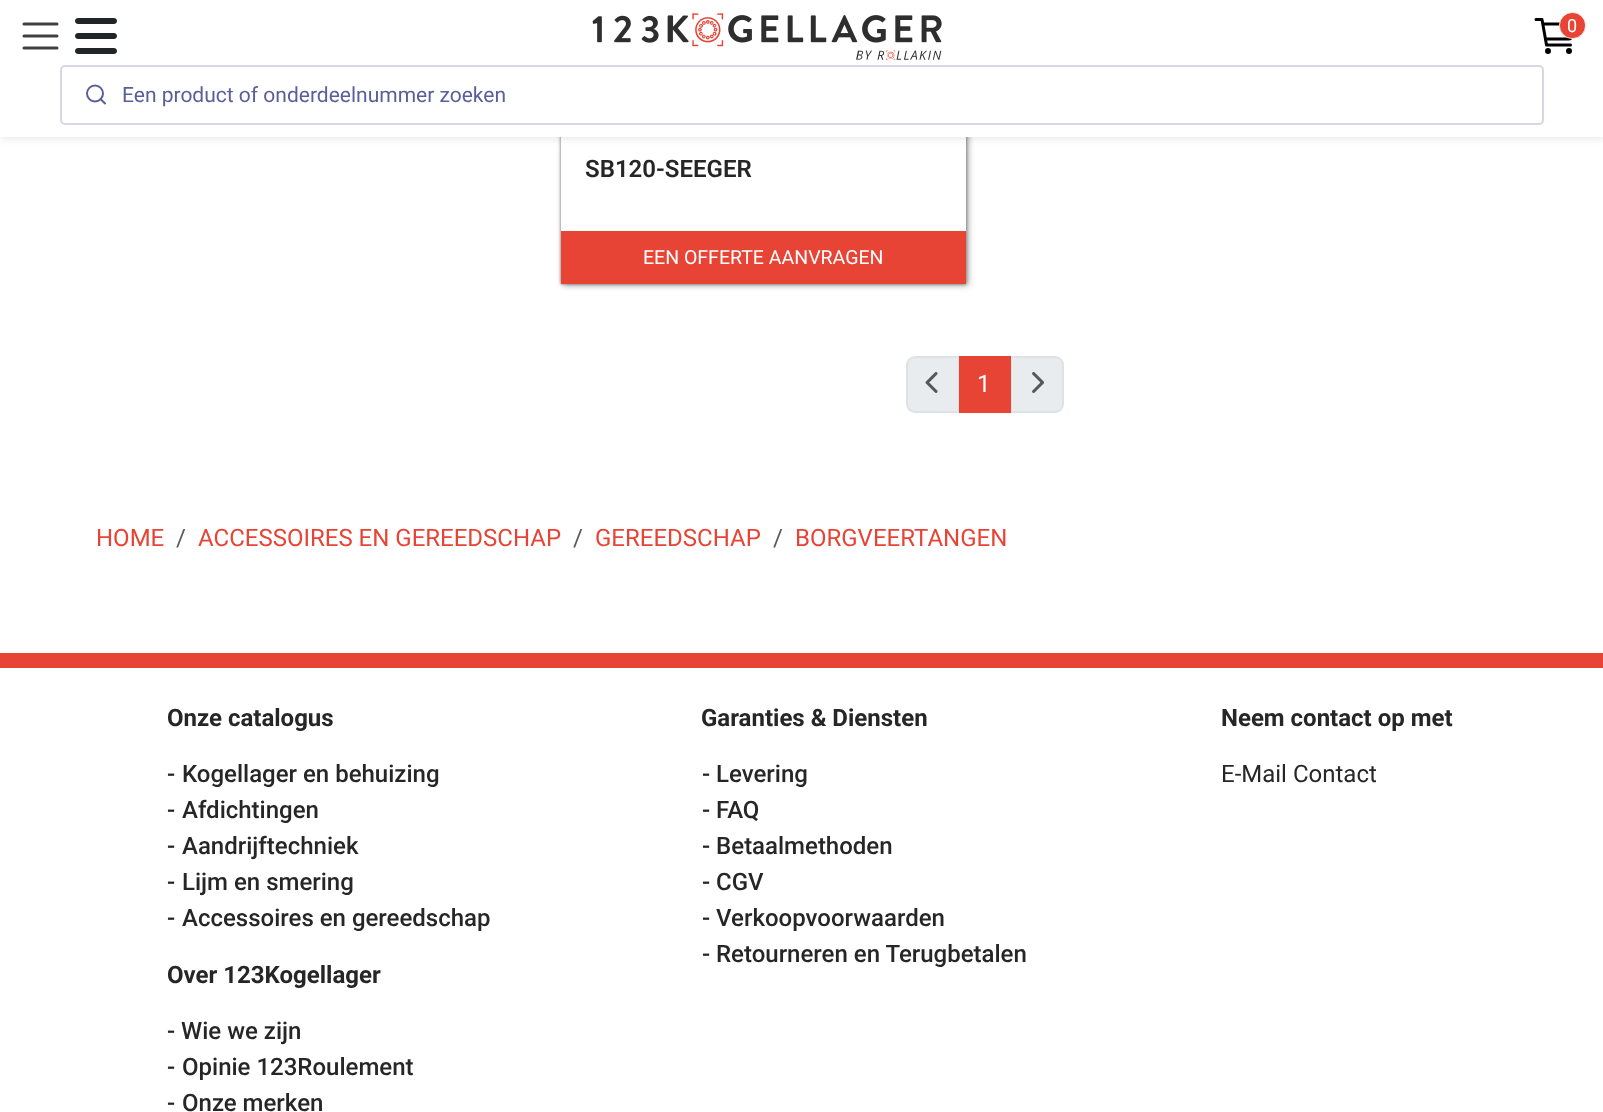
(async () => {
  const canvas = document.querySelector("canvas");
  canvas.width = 1603;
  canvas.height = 1112;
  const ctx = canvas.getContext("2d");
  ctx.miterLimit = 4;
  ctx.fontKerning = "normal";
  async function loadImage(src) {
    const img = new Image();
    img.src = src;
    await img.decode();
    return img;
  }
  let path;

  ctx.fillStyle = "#ffffff";
  ctx.fillRect(0, 0, 1603, 1112);
  ctx.fillStyle = "#999999";
  ctx.filter = "blur(3px)";
  ctx.beginPath();
  ctx.rect(563, -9, 405, 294);
  ctx.fill();
  ctx.filter = "none";
  ctx.fillStyle = "#777777";
  ctx.filter = "blur(1.5px)";
  ctx.beginPath();
  ctx.rect(561, -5, 405, 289);
  ctx.fill();
  ctx.filter = "none";
  ctx.fillStyle = "#ffffff";
  ctx.fillRect(561, 137, 405, 94);
  ctx.fillStyle = "rgba(0, 0, 0, 0.07)";
  ctx.filter = "blur(3px)";
  ctx.beginPath();
  ctx.rect(0, 3, 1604, 137);
  ctx.fill();
  ctx.filter = "none";
  ctx.fillStyle = "#ffffff";
  ctx.fillRect(0, 0, 1603, 137);
  path = new Path2D("M24 24H57M24 36H57M24 48H57");
  ctx.strokeStyle = "#404040";
  ctx.lineWidth = 3;
  ctx.lineCap = "round";
  ctx.stroke(path);
  ctx.drawImage(await loadImage("img/1.png"), 75, 18, 42, 36);
  ctx.drawImage(await loadImage("img/2.png"), 592, 13, 350, 48);
  ctx.beginPath();
  ctx.arc(1548, 51, 1.5, 0, Math.PI * 2);
  ctx.strokeStyle = "#000000";
  ctx.stroke();
  ctx.beginPath();
  ctx.arc(1569, 51, 1.5, 0, Math.PI * 2);
  ctx.stroke();
  path = new Path2D("M1536 19.5H1542L1546.5 45H1570.5M1546.5 39H1566C1570.5 39 1570.5 40 1571 36L1572 31.5C1573.5 23 1575.5 24 1567.5 24H1543.5");
  ctx.lineJoin = "round";
  ctx.stroke(path);
  ctx.fillStyle = "#e84436";
  ctx.beginPath();
  ctx.arc(1572.5, 25.5, 13.1, 0, Math.PI * 2);
  ctx.fill();
  ctx.strokeStyle = "#ffffff";
  ctx.lineWidth = 0.8;
  ctx.stroke();
  ctx.beginPath();
  ctx.roundRect(61, 66, 1482, 58, 4);
  ctx.strokeStyle = "#d6d6e7";
  ctx.lineWidth = 2;
  ctx.lineJoin = "miter";
  ctx.stroke();
  ctx.beginPath();
  ctx.arc(95, 93.5, 8, 0, Math.PI * 2);
  ctx.strokeStyle = "#5a5e9a";
  ctx.stroke();
  path = new Path2D("M105 103.5L100.5 99");
  ctx.lineJoin = "round";
  ctx.stroke(path);
  ctx.fillRect(561, 231, 405, 53);
  ctx.fillStyle = "#e9ecef";
  ctx.beginPath();
  ctx.roundRect(907, 357, 52, 55, [8, 0, 0, 8]);
  ctx.fill();
  ctx.strokeStyle = "#dee2e6";
  ctx.lineJoin = "miter";
  ctx.stroke();
  ctx.drawImage(await loadImage("img/3.png"), 925, 372, 13, 21);
  ctx.beginPath();
  ctx.roundRect(1011, 357, 52, 55, [0, 8, 8, 0]);
  ctx.fill();
  ctx.stroke();
  ctx.fillStyle = "#e84436";
  ctx.fillRect(959, 356, 52, 57);
  ctx.drawImage(await loadImage("img/4.png"), 1032, 372, 12, 21);
  ctx.fillRect(0, 653, 1603, 15);
  ctx.font = "18px Roboto";
  ctx.fillStyle = "#ffffff";
  ctx.fillText("0", 1567, 32);
  ctx.font = "21px Roboto";
  ctx.fillStyle = "#5a5e9a";
  ctx.fillText("Een product of onderdeelnummer zoeken", 122, 102);
  ctx.font = "600 24px Roboto";
  ctx.fillStyle = "#262626";
  ctx.fillText("SB120-SEEGER", 585, 177);
  ctx.font = "19.5px Roboto";
  ctx.fillStyle = "#ffffff";
  ctx.fillText("EEN OFFERTE AANVRAGEN", 643, 264);
  ctx.font = "24px Roboto";
  ctx.fillText("1", 977, 392);
  ctx.fillStyle = "#e84436";
  ctx.fillText("HOME", 96, 546);
  ctx.fillStyle = "#595c5f";
  ctx.fillText("/", 176, 546);
  ctx.fillStyle = "#e84436";
  ctx.fillText("ACCESSOIRES EN GEREEDSCHAP", 198, 546);
  ctx.fillStyle = "#595c5f";
  ctx.fillText("/", 573, 546);
  ctx.fillStyle = "#e84436";
  ctx.fillText("GEREEDSCHAP", 595, 546);
  ctx.fillStyle = "#595c5f";
  ctx.fillText("/", 773, 546);
  ctx.fillStyle = "#e84436";
  ctx.fillText("BORGVEERTANGEN", 795, 546);
  ctx.font = "bold 24px Roboto";
  ctx.fillStyle = "#262626";
  ctx.fillText("Onze catalogus", 167, 726);
  ctx.font = "500 24px Roboto";
  for (const [text, x, y] of [
    ["-", 167, 782],
    ["Kogellager en behuizing", 182, 782],
    ["-", 167, 818],
    ["Afdichtingen", 182, 818],
    ["-", 167, 854],
    ["Aandrijftechniek", 182, 854],
    ["-", 167, 890],
    ["Lijm en smering", 182, 890],
    ["-", 167, 926],
    ["Accessoires en gereedschap", 182, 926],
  ]) {
    ctx.fillText(text, x, y);
  }
  ctx.font = "bold 24px Roboto";
  ctx.fillText("Over 123Kogellager", 167, 983);
  ctx.font = "500 24px Roboto";
  for (const [text, x, y] of [
    ["- Wie we zijn", 167, 1039],
    ["-", 167, 1075],
    ["Opinie 123Roulement", 182, 1075],
    ["-", 167, 1111],
    ["Onze merken", 182, 1111],
  ]) {
    ctx.fillText(text, x, y);
  }
  ctx.font = "bold 24px Roboto";
  ctx.fillText("Garanties & Diensten", 701, 726);
  ctx.font = "500 24px Roboto";
  for (const [text, x, y] of [
    ["-", 702, 782],
    ["Levering", 716, 782],
    ["-", 702, 818],
    ["FAQ", 716, 818],
    ["- Betaalmethoden", 702, 854],
    ["-", 702, 890],
    ["CGV", 716, 890],
    ["- Verkoopvoorwaarden", 702, 926],
    ["-", 702, 962],
    ["Retourneren en Terugbetalen", 716, 962],
  ]) {
    ctx.fillText(text, x, y);
  }
  ctx.font = "bold 24px Roboto";
  ctx.fillText("Neem contact op met", 1221, 726);
  ctx.font = "24px Roboto";
  ctx.fillText("E-Mail Contact", 1221, 782);
})();
